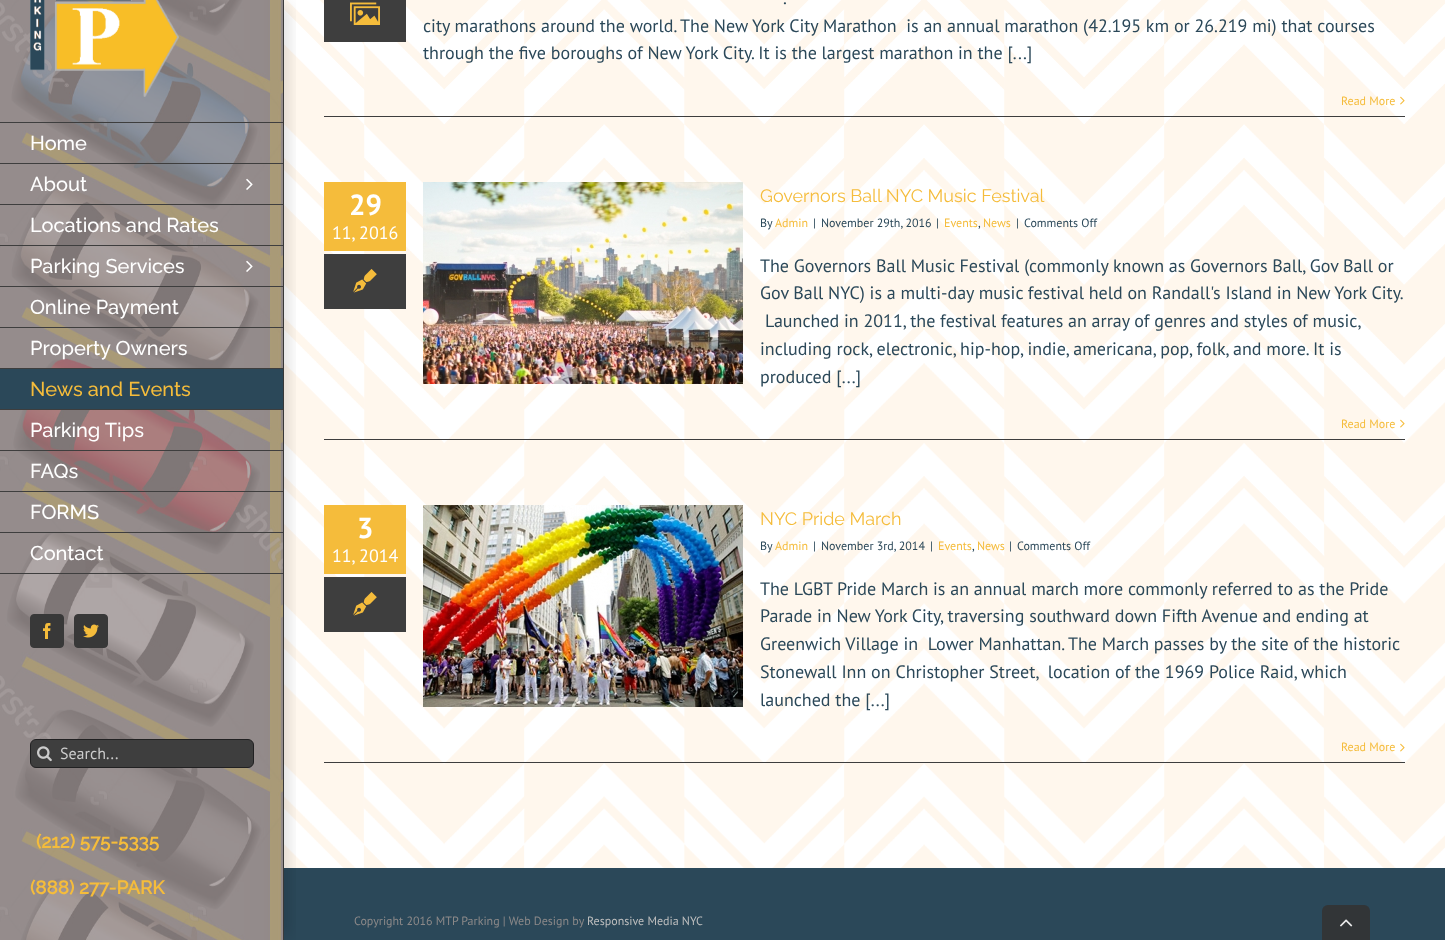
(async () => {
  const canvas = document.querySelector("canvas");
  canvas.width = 1445;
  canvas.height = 940;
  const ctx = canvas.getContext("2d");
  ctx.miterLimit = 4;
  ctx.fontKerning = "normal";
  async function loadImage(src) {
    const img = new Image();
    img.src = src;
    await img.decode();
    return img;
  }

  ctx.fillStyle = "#ffffff";
  ctx.fillRect(0, 0, 1445, 940);
  ctx.drawImage(await loadImage("img/1.png"), 0, 0, 283, 940);
  ctx.fillStyle = "#3e3e3e";
  ctx.fillRect(283, 0, 1, 940);
  ctx.drawImage(await loadImage("img/8.png"), 284, 0, 1161, 868);
  ctx.fillStyle = "#2b4859";
  ctx.fillRect(284, 868, 1161, 72);
  ctx.save();
  ctx.beginPath();
  ctx.rect(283, 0, 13, 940);
  ctx.clip();
  ctx.fillStyle = "rgba(0, 0, 0, 0.14)";
  ctx.filter = "blur(7.5px)";
  ctx.beginPath();
  ctx.rect(273, 5, 15, 930);
  ctx.fill();
  ctx.filter = "none";
  ctx.restore();
  ctx.drawImage(await loadImage("img/2.png"), 30, 0, 149, 97);
  for (const [x, y, w, h, color] of [
    [0, 122, 283, 1, "#3e3e3e"],
    [0, 163, 283, 1, "#3e3e3e"],
    [0, 204, 283, 1, "#3e3e3e"],
  ]) {
    ctx.fillStyle = color;
    ctx.fillRect(x, y, w, h);
  }
  ctx.drawImage(await loadImage("img/3.png"), 246, 178, 7, 12);
  ctx.fillRect(0, 245, 283, 1);
  ctx.fillRect(0, 286, 283, 1);
  ctx.drawImage(await loadImage("img/4.png"), 246, 260, 7, 12);
  for (const [x, y, w, h, color] of [
    [0, 327, 283, 1, "#3e3e3e"],
    [0, 368, 283, 1, "#3e3e3e"],
    [0, 369, 283, 40, "#2b4859"],
    [0, 409, 283, 1, "#3e3e3e"],
    [0, 450, 283, 1, "#3e3e3e"],
    [0, 491, 283, 1, "#3e3e3e"],
    [0, 532, 283, 1, "#3e3e3e"],
    [0, 573, 283, 1, "#3e3e3e"],
  ]) {
    ctx.fillStyle = color;
    ctx.fillRect(x, y, w, h);
  }
  ctx.fillStyle = "#383838";
  ctx.beginPath();
  ctx.roundRect(30.5, 614.5, 33, 33, 3.5);
  ctx.fill();
  ctx.strokeStyle = "#383838";
  ctx.stroke();
  ctx.drawImage(await loadImage("img/5.png"), 43, 623, 8, 16);
  ctx.beginPath();
  ctx.roundRect(74.5, 614.5, 33, 33, 3.5);
  ctx.fill();
  ctx.stroke();
  ctx.drawImage(await loadImage("img/6.png"), 83, 624, 16, 14);
  ctx.fillStyle = "#3e3e3e";
  ctx.beginPath();
  ctx.roundRect(30.5, 739.5, 223, 28, 5.5);
  ctx.fill();
  ctx.strokeStyle = "#212122";
  ctx.stroke();
  ctx.drawImage(await loadImage("img/7.png"), 37, 746, 15, 16);
  ctx.fillRect(324, 0, 82, 42);
  ctx.drawImage(await loadImage("img/9.png"), 350, 2, 30, 23);
  ctx.fillRect(324, 116, 1081, 1);
  ctx.drawImage(await loadImage("img/10.png"), 1400, 96, 5, 9);
  ctx.fillStyle = "#f5bc3b";
  ctx.fillRect(324, 182, 82, 69);
  ctx.fillStyle = "#3e3e3e";
  ctx.fillRect(324, 254, 82, 55);
  ctx.drawImage(await loadImage("img/11.png"), 353, 269, 24, 24);
  ctx.drawImage(await loadImage("img/12.png"), 423, 182, 320, 202);
  ctx.fillRect(324, 439, 1081, 1);
  ctx.drawImage(await loadImage("img/10.png"), 1400, 419, 5, 9);
  ctx.fillStyle = "#f5bc3b";
  ctx.fillRect(324, 505, 82, 69);
  ctx.fillStyle = "#3e3e3e";
  ctx.fillRect(324, 577, 82, 55);
  ctx.drawImage(await loadImage("img/11.png"), 353, 592, 24, 24);
  ctx.drawImage(await loadImage("img/13.png"), 423, 505, 320, 202);
  ctx.fillRect(324, 762, 1081, 1);
  ctx.drawImage(await loadImage("img/10.png"), 1400, 743, 5, 9);
  ctx.fillStyle = "#323537";
  ctx.beginPath();
  ctx.roundRect(1322, 905, 48, 35, [6, 6, 0, 0]);
  ctx.fill();
  ctx.drawImage(await loadImage("img/14.png"), 1340, 919, 13, 8);
  ctx.font = "500 20px Raleway";
  ctx.fillStyle = "#ffffff";
  for (const [text, x, y] of [
    ["Home", 30, 150],
    ["About", 30, 191],
    ["Locations and Rates", 30, 232],
    ["Parking Services", 30, 273],
    ["Online Payment", 30, 314],
    ["Property Owners", 30, 355],
  ]) {
    ctx.fillText(text, x, y);
  }
  ctx.fillStyle = "#f5bc3b";
  ctx.fillText("News and Events", 30, 396);
  ctx.fillStyle = "#ffffff";
  for (const [text, x, y] of [
    ["Parking Tips", 30, 437],
    ["FAQs", 30, 478],
    ["FORMS", 30, 519],
    ["Contact", 30, 560],
  ]) {
    ctx.fillText(text, x, y);
  }
  ctx.font = "16px PT Sans";
  ctx.fillStyle = "#cccccc";
  ctx.fillText("Search...", 60, 759);
  ctx.font = "bold 18.75px Raleway";
  ctx.fillStyle = "#f5bc3b";
  ctx.fillText("(212) 575-5335", 36, 848);
  ctx.fillText("(888) 277-PARK", 30, 894);
  ctx.font = "18px PT Sans";
  ctx.fillStyle = "#2b4859";
  for (const [text, x, y] of [
    [".", 783, 4],
    ["city marathons around the world. The New York City Marathon  is an annual marathon (42.195 km or 26.219 mi) that courses", 423, 32],
    ["through the five boroughs of New York City. It is the largest marathon in the [...]", 423, 59],
  ]) {
    ctx.fillText(text, x, y);
  }
  ctx.font = "12px PT Sans";
  ctx.fillStyle = "#f5bc3b";
  ctx.fillText("Read More", 1341, 105);
  ctx.font = "bold 29px PT Sans";
  ctx.fillStyle = "#ffffff";
  ctx.fillText("29", 349, 215);
  ctx.font = "18px PT Sans";
  ctx.fillText("11, 2016", 332, 239);
  ctx.font = "18px Raleway";
  ctx.fillStyle = "#f5bc3b";
  ctx.fillText("Governors Ball NYC Music Festival", 760, 202);
  ctx.font = "12px PT Sans";
  ctx.fillStyle = "#2b4859";
  ctx.fillText("By", 760, 227);
  ctx.fillStyle = "#f5bc3b";
  ctx.fillText("Admin", 775, 227);
  ctx.fillStyle = "#2b4859";
  for (const [text, x, y] of [
    ["|", 813, 227],
    ["November 29th, 2016", 821, 227],
    ["|", 936, 227],
  ]) {
    ctx.fillText(text, x, y);
  }
  ctx.fillStyle = "#f5bc3b";
  ctx.fillText("Events", 944, 227);
  ctx.fillStyle = "#2b4859";
  ctx.fillText(",", 978, 227);
  ctx.fillStyle = "#f5bc3b";
  ctx.fillText("News", 983, 227);
  ctx.fillStyle = "#2b4859";
  ctx.fillText("|", 1016, 227);
  ctx.fillText("Comments Off", 1024, 227);
  ctx.font = "18px PT Sans";
  for (const [text, x, y] of [
    ["The Governors Ball Music Festival (commonly known as Governors Ball, Gov Ball or", 760, 272],
    ["Gov Ball NYC) is a multi-day music festival held on Randall's Island in New York City.", 760, 299],
    ["Launched in 2011, the festival features an array of genres and styles of music,", 765, 327],
    ["including rock, electronic, hip-hop, indie, americana, pop, folk, and more. It is", 760, 355],
    ["produced [...]", 760, 383],
  ]) {
    ctx.fillText(text, x, y);
  }
  ctx.font = "12px PT Sans";
  ctx.fillStyle = "#f5bc3b";
  ctx.fillText("Read More", 1341, 428);
  ctx.font = "bold 29px PT Sans";
  ctx.fillStyle = "#ffffff";
  ctx.fillText("3", 357, 538);
  ctx.font = "18px PT Sans";
  ctx.fillText("11, 2014", 332, 562);
  ctx.font = "18px Raleway";
  ctx.fillStyle = "#f5bc3b";
  ctx.fillText("NYC Pride March", 760, 525);
  ctx.font = "12px PT Sans";
  ctx.fillStyle = "#2b4859";
  ctx.fillText("By", 760, 550);
  ctx.fillStyle = "#f5bc3b";
  ctx.fillText("Admin", 775, 550);
  ctx.fillStyle = "#2b4859";
  for (const [text, x, y] of [
    ["|", 813, 550],
    ["November 3rd, 2014", 821, 550],
    ["|", 930, 550],
  ]) {
    ctx.fillText(text, x, y);
  }
  ctx.fillStyle = "#f5bc3b";
  ctx.fillText("Events", 938, 550);
  ctx.fillStyle = "#2b4859";
  ctx.fillText(",", 972, 550);
  ctx.fillStyle = "#f5bc3b";
  ctx.fillText("News", 977, 550);
  ctx.fillStyle = "#2b4859";
  ctx.fillText("|", 1009, 550);
  ctx.fillText("Comments Off", 1017, 550);
  ctx.font = "18px PT Sans";
  for (const [text, x, y] of [
    ["The LGBT Pride March is an annual march more commonly referred to as the Pride", 760, 595],
    ["Parade in New York City, traversing southward down Fifth Avenue and ending at", 760, 622],
    ["Greenwich Village in  Lower Manhattan. The March passes by the site of the historic", 760, 650],
    ["Stonewall Inn on Christopher Street,  location of the 1969 Police Raid, which", 760, 678],
    ["launched the [...]", 760, 706],
  ]) {
    ctx.fillText(text, x, y);
  }
  ctx.font = "12px PT Sans";
  ctx.fillStyle = "#f5bc3b";
  ctx.fillText("Read More", 1341, 751);
  ctx.fillStyle = "#8c8989";
  ctx.fillText("Copyright 2016 MTP Parking | Web Design by", 354, 925);
  ctx.fillStyle = "#bfbfbf";
  ctx.fillText("Responsive Media NYC", 587, 925);
})();
